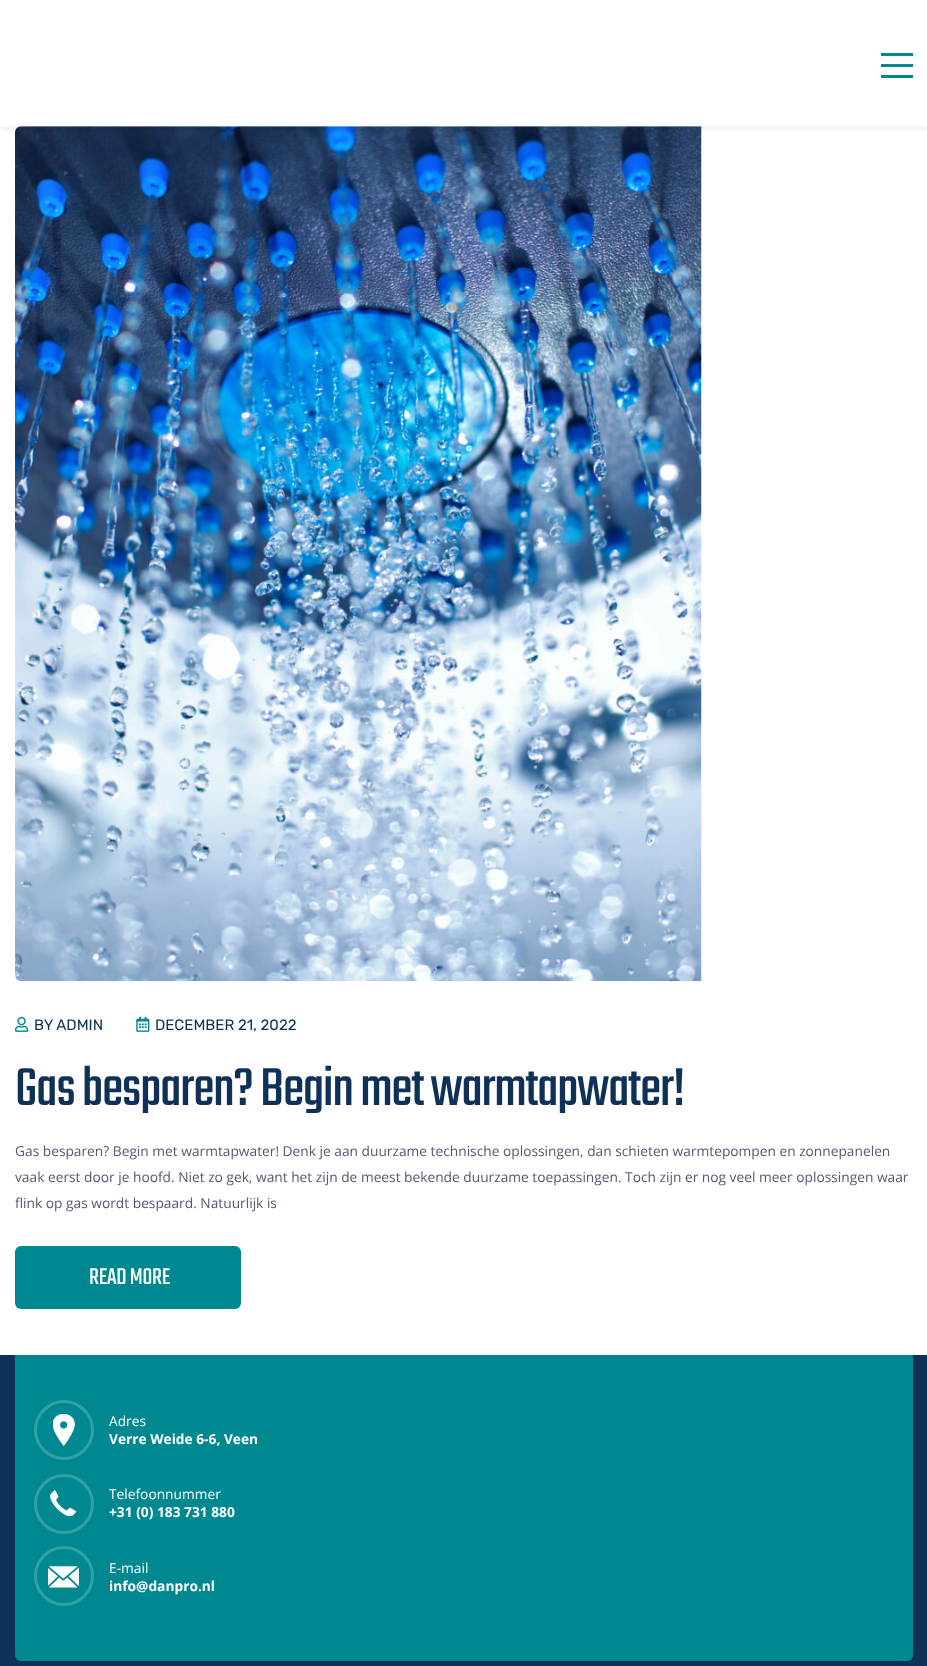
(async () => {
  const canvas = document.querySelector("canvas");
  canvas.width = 927;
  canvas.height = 1666;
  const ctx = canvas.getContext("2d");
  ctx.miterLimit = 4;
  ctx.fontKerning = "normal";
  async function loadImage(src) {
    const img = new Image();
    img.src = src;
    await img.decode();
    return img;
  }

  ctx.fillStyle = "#ffffff";
  ctx.fillRect(0, 0, 927, 1666);
  ctx.drawImage(await loadImage("img/1.png"), 15, 126, 687, 856);
  ctx.save();
  ctx.beginPath();
  ctx.rect(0, 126, 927, 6);
  ctx.clip();
  ctx.fillStyle = "rgba(0, 0, 0, 0.06)";
  ctx.filter = "blur(4px)";
  ctx.beginPath();
  ctx.rect(0, 4, 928, 126);
  ctx.fill();
  ctx.filter = "none";
  ctx.restore();
  for (const [x, y, w, h, color] of [
    [881, 53, 32, 3, "#008891"],
    [881, 64, 32, 3, "#008891"],
    [881, 75, 32, 3, "#008891"],
  ]) {
    ctx.fillStyle = color;
    ctx.fillRect(x, y, w, h);
  }
  ctx.drawImage(await loadImage("img/2.png"), 15, 1016, 14, 16);
  ctx.drawImage(await loadImage("img/3.png"), 136, 1016, 14, 16);
  ctx.beginPath();
  ctx.roundRect(15, 1246, 226, 63, 6);
  ctx.fill();
  ctx.fillStyle = "#0f3057";
  ctx.fillRect(0, 1355, 927, 311);
  ctx.fillStyle = "#008891";
  ctx.beginPath();
  ctx.roundRect(15, 1355, 898, 306, [0, 0, 6, 6]);
  ctx.fill();
  ctx.beginPath();
  ctx.arc(64, 1430, 28.5, 0, Math.PI * 2);
  ctx.strokeStyle = "#33a0a7";
  ctx.lineWidth = 3;
  ctx.stroke();
  ctx.drawImage(await loadImage("img/4.png"), 53, 1414, 22, 32);
  ctx.beginPath();
  ctx.arc(64, 1504, 28.5, 0, Math.PI * 2);
  ctx.stroke();
  ctx.drawImage(await loadImage("img/5.png"), 50, 1490, 27, 26);
  ctx.beginPath();
  ctx.arc(64, 1576, 28.5, 0, Math.PI * 2);
  ctx.stroke();
  ctx.drawImage(await loadImage("img/6.png"), 48, 1566, 31, 22);
  ctx.font = "15px Rubik";
  ctx.fillStyle = "#0f3057";
  ctx.fillText("BY ADMIN", 34, 1030);
  ctx.fillText("DECEMBER 21, 2022", 155, 1030);
  ctx.letterSpacing = "-1.1px";
  ctx.font = "58.75px Teko";
  ctx.fillText("Gas besparen? Begin met warmtapwater!", 15, 1105);
  ctx.letterSpacing = "0px";
  ctx.font = "13.75px Open Sans";
  ctx.fillStyle = "#565872";
  for (const [text, x, y] of [
    ["Gas besparen? Begin met warmtapwater! Denk je aan duurzame technische oplossingen, dan schieten warmtepompen en zonnepanelen", 15, 1156],
    ["vaak eerst door je hoofd. Niet zo gek, want het zijn de meest bekende duurzame toepassingen. Toch zijn er nog veel meer oplossingen waar", 15, 1182],
    ["flink op gas wordt bespaard. Natuurlijk is", 15, 1208],
  ]) {
    ctx.fillText(text, x, y);
  }
  ctx.letterSpacing = "-0.25px";
  ctx.font = "25px Teko";
  ctx.fillStyle = "#ffffff";
  ctx.fillText("READ MORE", 89, 1284);
  ctx.letterSpacing = "0px";
  ctx.font = "13.75px Open Sans";
  ctx.fillText("Adres", 109, 1426);
  ctx.font = "bold 13.75px Open Sans";
  ctx.fillText("Verre Weide 6-6, Veen", 109, 1444);
  ctx.font = "13.75px Open Sans";
  ctx.fillText("Telefoonnummer", 109, 1499);
  ctx.font = "bold 13.75px Open Sans";
  ctx.fillText("+31 (0) 183 731 880", 109, 1517);
  ctx.font = "13.75px Open Sans";
  ctx.fillText("E-mail", 109, 1573);
  ctx.font = "bold 13.75px Open Sans";
  ctx.fillText("info@danpro.nl", 109, 1591);
})();
